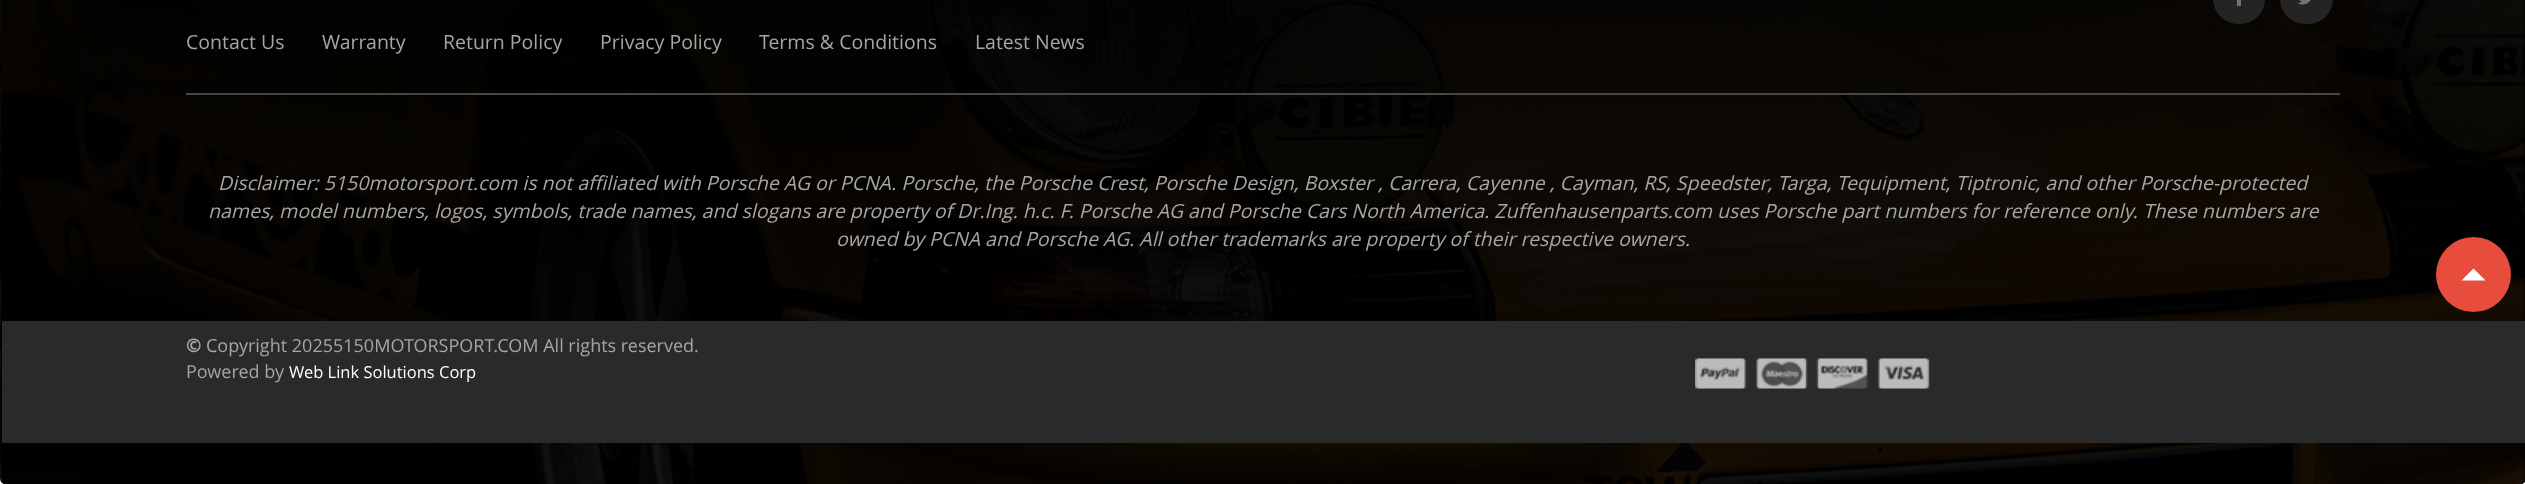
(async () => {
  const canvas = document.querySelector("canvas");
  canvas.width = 2525;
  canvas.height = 484;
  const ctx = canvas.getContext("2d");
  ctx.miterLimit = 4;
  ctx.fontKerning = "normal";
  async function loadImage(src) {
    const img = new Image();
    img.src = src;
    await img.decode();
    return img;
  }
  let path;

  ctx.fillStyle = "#ffffff";
  ctx.fillRect(0, 0, 2525, 484);
  ctx.drawImage(await loadImage("img/1.png"), 0, 0, 2525, 484);
  ctx.fillStyle = "#000000";
  ctx.fillRect(2524, 0, 1, 321);
  ctx.drawImage(await loadImage("img/2.png"), 1, 0, 2524, 443);
  ctx.fillStyle = "#454646";
  ctx.fillRect(186, 93, 2154, 2);
  ctx.fillStyle = "#242424";
  ctx.beginPath();
  ctx.roundRect(2213, -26, 52, 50, 26);
  ctx.fill();
  ctx.fillStyle = "#737373";
  ctx.fillRect(2237, 0, 4, 6);
  ctx.fillStyle = "#242424";
  ctx.beginPath();
  ctx.roundRect(2280, -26, 53, 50, 26);
  ctx.fill();
  ctx.drawImage(await loadImage("img/3.png"), 2297, 0, 14, 5);
  ctx.fillStyle = "#2a2a2a";
  ctx.fillRect(2, 321, 2523, 122);
  ctx.drawImage(await loadImage("img/4.png"), 1695, 358, 235, 31);
  ctx.fillStyle = "#e74c3c";
  ctx.beginPath();
  ctx.arc(2473.5, 274.5, 37.5, 0, Math.PI * 2);
  ctx.fill();
  ctx.fillStyle = "#ffffff";
  path = new Path2D("M2485.5 280.5H2461.5L2473.5 268.5Z");
  ctx.fill(path);
  ctx.font = "19.5px Open Sans";
  ctx.fillStyle = "#a6a6a6";
  for (const [text, x, y] of [
    ["Contact Us", 186, 49],
    ["Warranty", 322, 49],
    ["Return Policy", 443, 49],
    ["Privacy Policy", 600, 49],
    ["Terms & Conditions", 759, 49],
    ["Latest News", 975, 49],
  ]) {
    ctx.fillText(text, x, y);
  }
  ctx.font = "italic 19.5px Open Sans";
  for (const [text, x, y] of [
    ["Disclaimer: 5150motorsport.com is not affiliated with Porsche AG or PCNA. Porsche, the Porsche Crest, Porsche Design, Boxster , Carrera, Cayenne , Cayman, RS, Speedster, Targa, Tequipment, Tiptronic, and other Porsche-protected", 218, 190],
    ["names, model numbers, logos, symbols, trade names, and slogans are property of Dr.Ing. h.c. F. Porsche AG and Porsche Cars North America. Zuffenhausenparts.com uses Porsche part numbers for reference only. These numbers are", 208, 218],
    ["owned by PCNA and Porsche AG. All other trademarks are property of their respective owners.", 836, 246],
  ]) {
    ctx.fillText(text, x, y);
  }
  ctx.font = "bold 18px Open Sans";
  ctx.fillText("©", 186, 352);
  ctx.font = "18px Open Sans";
  ctx.fillText("Copyright 20255150MOTORSPORT.COM All rights reserved.", 206, 352);
  ctx.fillText("Powered by", 186, 378);
  ctx.font = "16.5px Open Sans";
  ctx.fillStyle = "#ffffff";
  ctx.fillText("Web Link Solutions Corp", 289, 378);
})();
